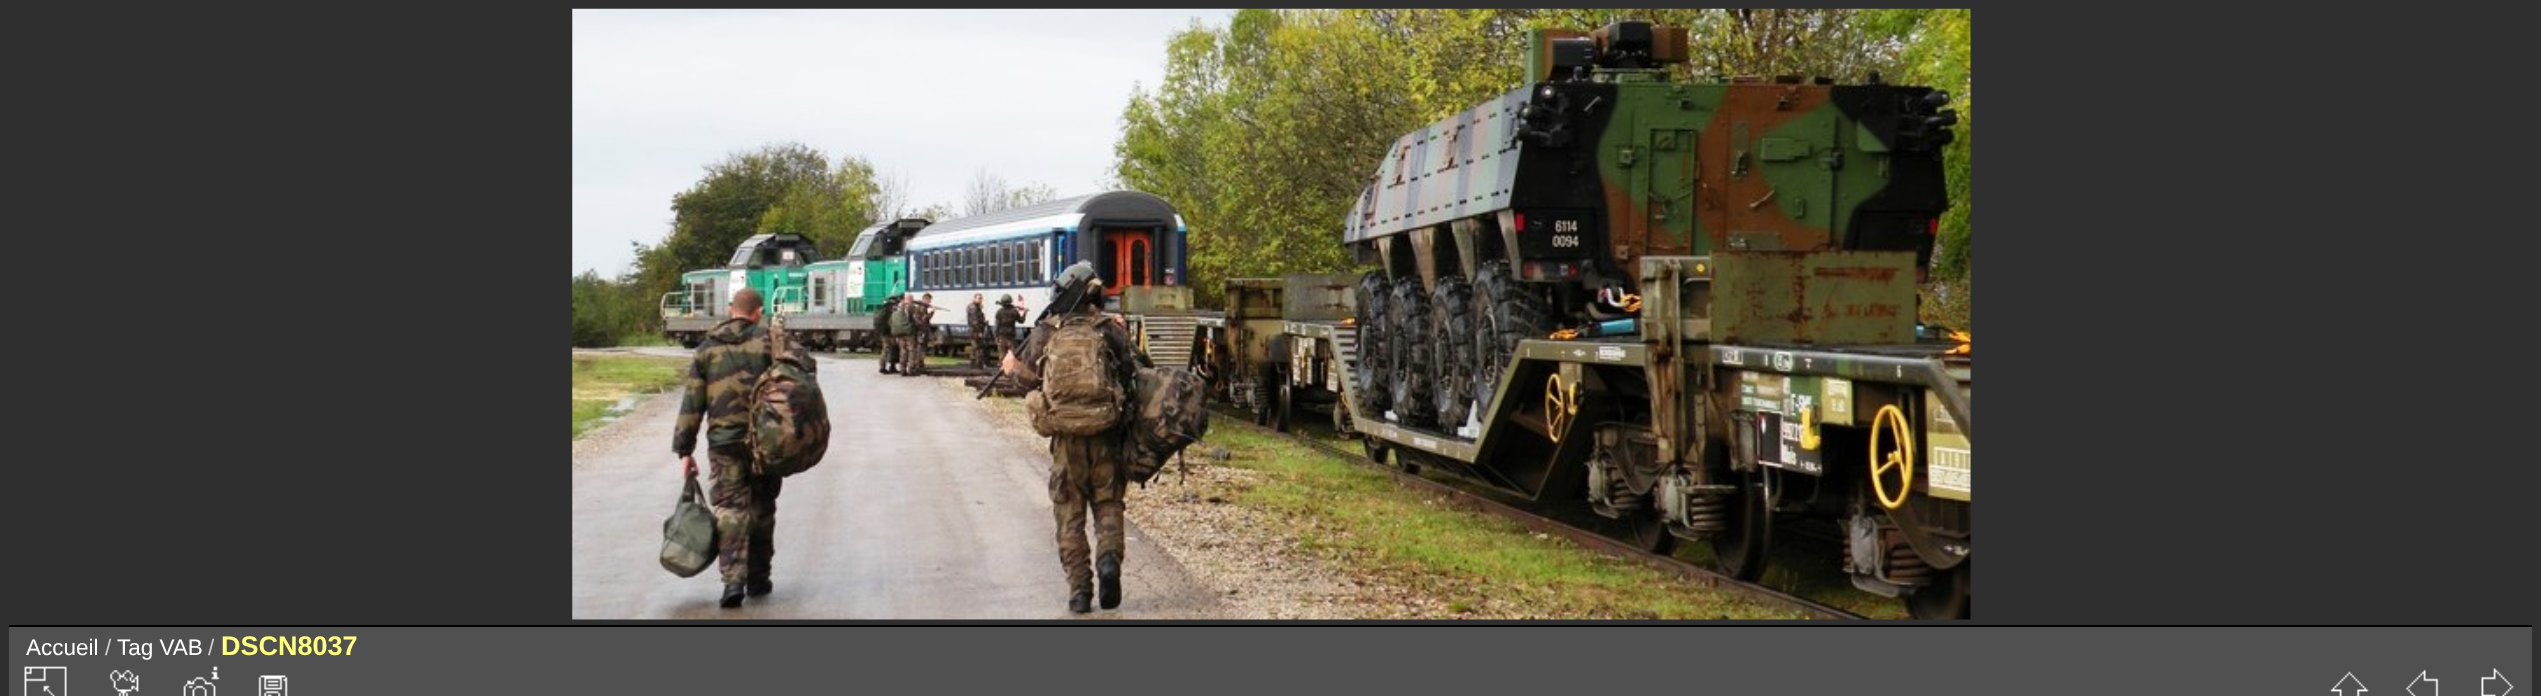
(async () => {
  const canvas = document.querySelector("canvas");
  canvas.width = 2541;
  canvas.height = 696;
  const ctx = canvas.getContext("2d");
  ctx.miterLimit = 4;
  ctx.fontKerning = "normal";
  async function loadImage(src) {
    const img = new Image();
    img.src = src;
    await img.decode();
    return img;
  }

  ctx.fillStyle = "#2f2f2f";
  ctx.fillRect(0, 0, 2541, 696);
  ctx.drawImage(await loadImage("img/1.png"), 572, 8, 1399, 612);
  ctx.fillStyle = "#505050";
  ctx.fillRect(9, 627, 2523, 69);
  ctx.drawImage(await loadImage("img/2.png"), 24, 666, 43, 30);
  ctx.drawImage(await loadImage("img/3.png"), 109, 669, 30, 27);
  ctx.drawImage(await loadImage("img/4.png"), 183, 666, 37, 30);
  ctx.drawImage(await loadImage("img/5.png"), 258, 675, 30, 21);
  ctx.drawImage(await loadImage("img/6.png"), 2330, 671, 39, 25);
  ctx.drawImage(await loadImage("img/7.png"), 2405, 669, 34, 27);
  ctx.drawImage(await loadImage("img/8.png"), 2481, 668, 33, 28);
  ctx.fillStyle = "#000000";
  ctx.fillRect(9, 625, 2523, 2);
  ctx.font = "22.5px Liberation Sans";
  ctx.fillStyle = "#ffffff";
  ctx.fillText("Accueil", 26, 655);
  ctx.fillStyle = "#d0d0d0";
  ctx.fillText("/", 105, 655);
  ctx.fillStyle = "#ffffff";
  ctx.fillText("Tag VAB", 117, 655);
  ctx.fillStyle = "#d0d0d0";
  ctx.fillText("/", 208, 655);
  ctx.font = "bold 27px Liberation Sans";
  ctx.fillStyle = "#ffff80";
  ctx.fillText("DSCN8037", 221, 655);
})();
